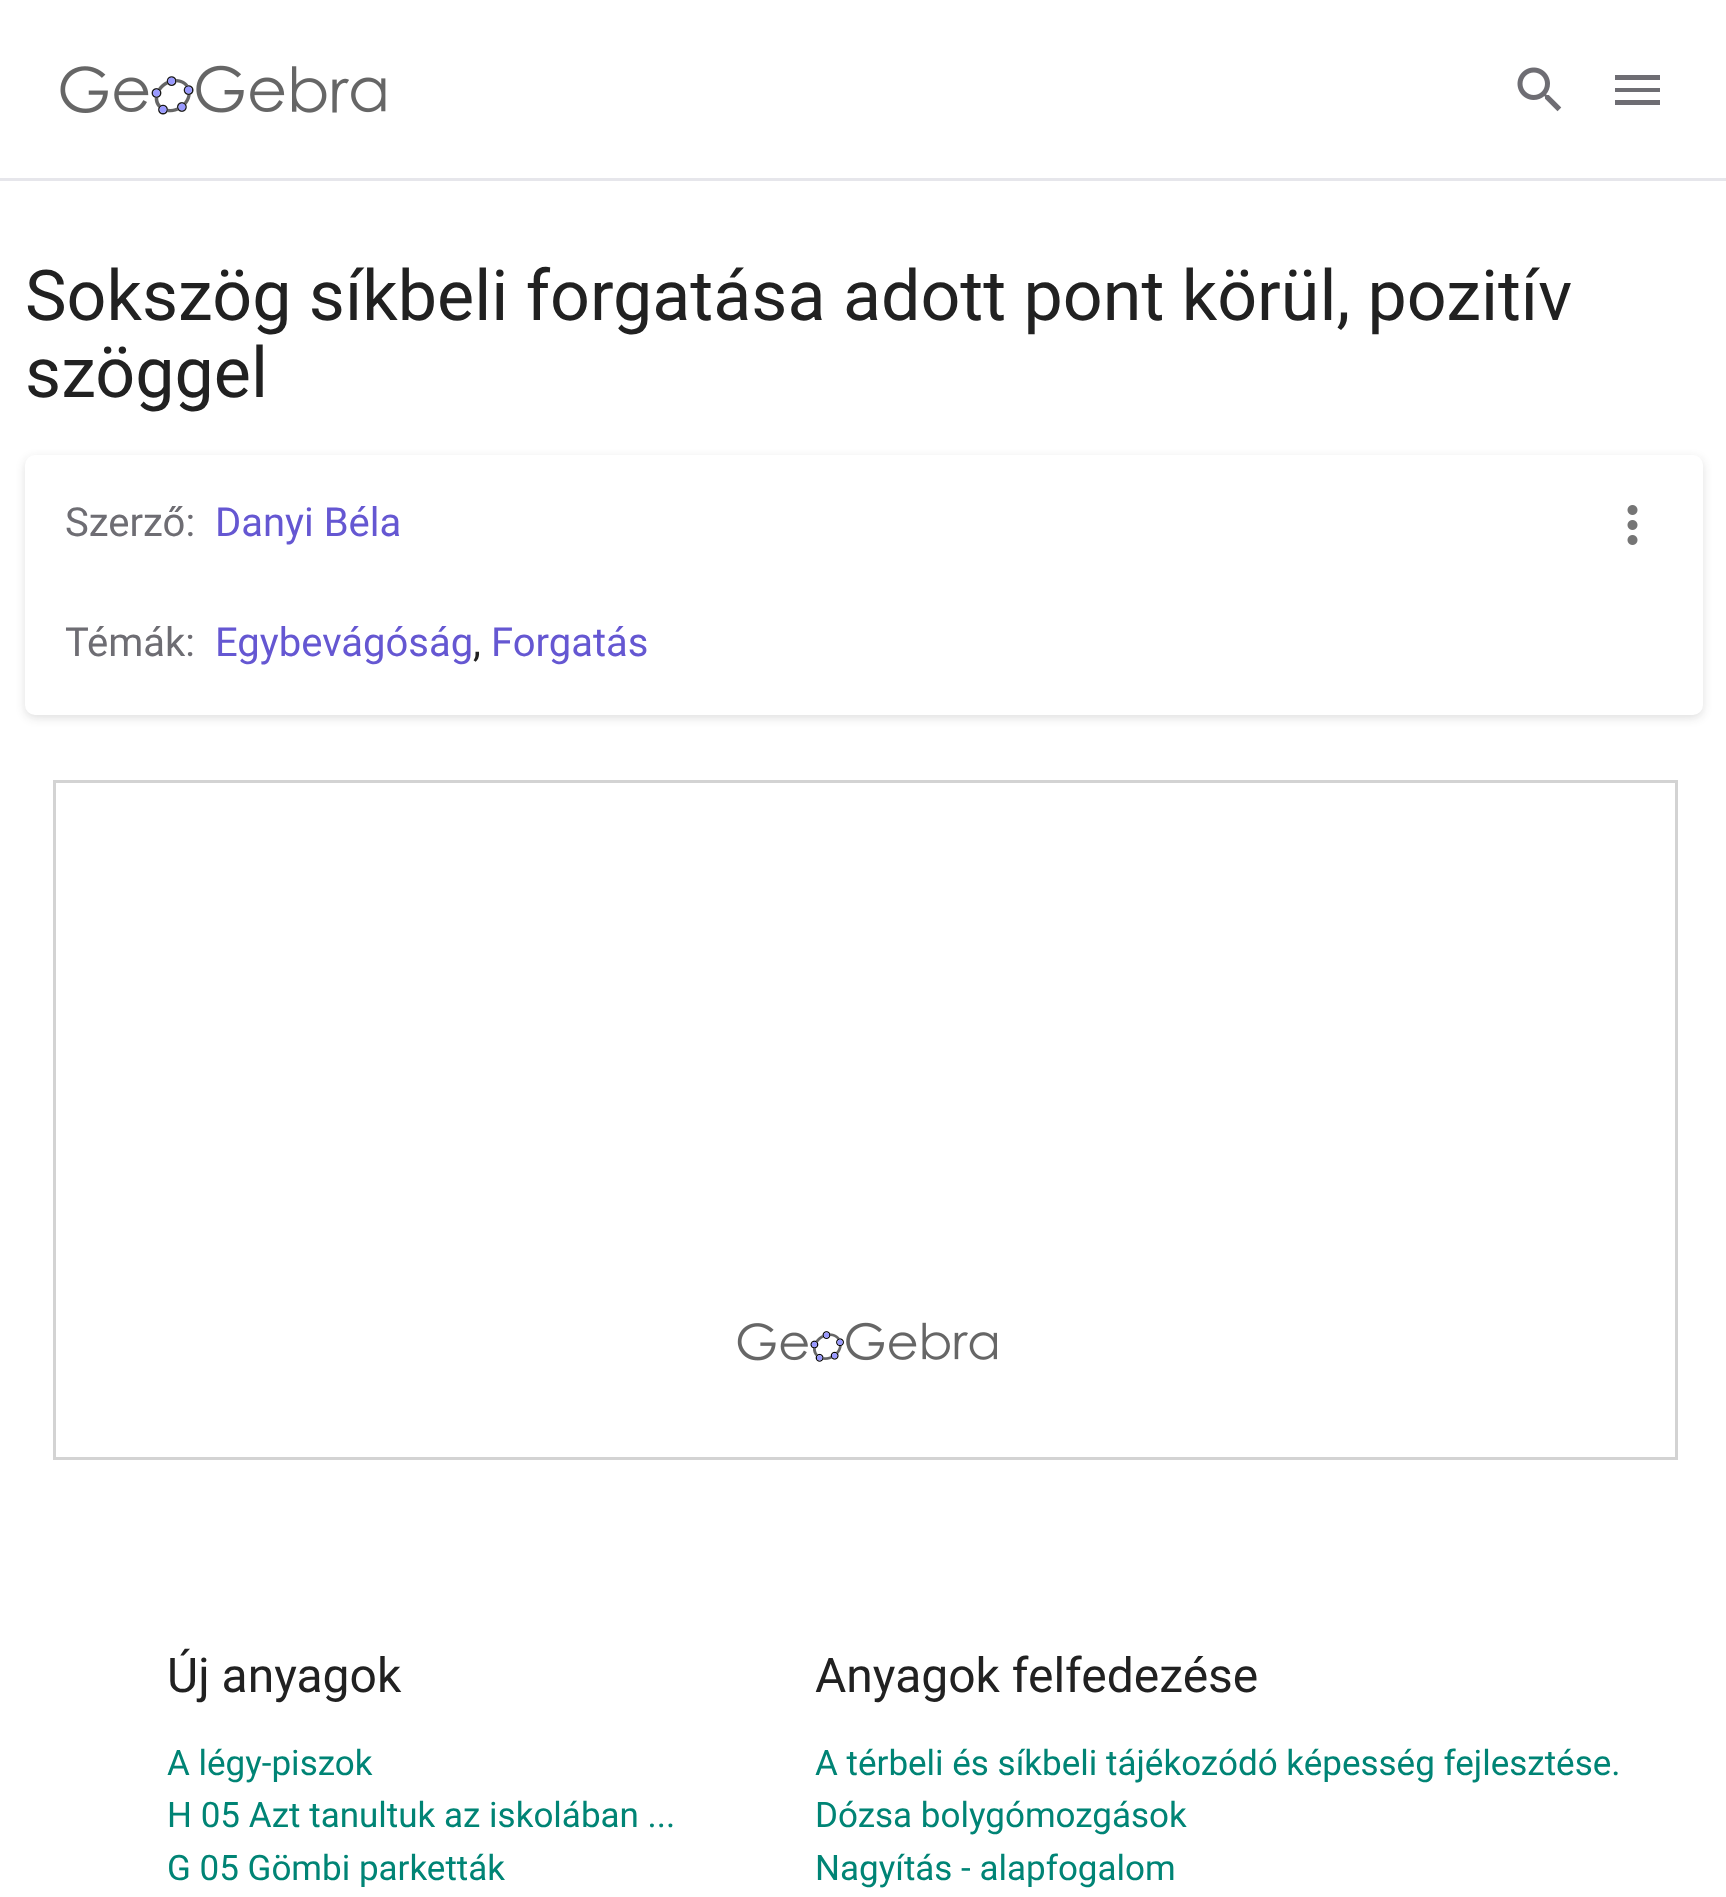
(async () => {
  const canvas = document.querySelector("canvas");
  canvas.width = 1726;
  canvas.height = 1897;
  const ctx = canvas.getContext("2d");
  ctx.miterLimit = 4;
  ctx.fontKerning = "normal";
  async function loadImage(src) {
    const img = new Image();
    img.src = src;
    await img.decode();
    return img;
  }
  let path;

  ctx.fillStyle = "#ffffff";
  ctx.fillRect(0, 0, 1726, 1897);
  ctx.fillStyle = "#e6e6eb";
  ctx.fillRect(0, 178, 1726, 3);
  ctx.drawImage(await loadImage("img/1.png"), 60, 65, 326, 50);
  ctx.drawImage(await loadImage("img/2.png"), 1517, 67, 45, 45);
  ctx.fillStyle = "#6e6d73";
  path = new Path2D("M1615 75H1660V80H1615V75M1615 88H1660V92H1615V88M1615 100H1660V105H1615Z");
  ctx.fill(path);
  ctx.fillStyle = "rgba(28, 28, 31, 0.14)";
  ctx.filter = "blur(5px)";
  ctx.beginPath();
  ctx.roundRect(25, 458, 1678, 260, 10);
  ctx.fill();
  ctx.filter = "none";
  ctx.fillStyle = "#ffffff";
  ctx.beginPath();
  ctx.roundRect(25, 455, 1678, 260, 10);
  ctx.fill();
  ctx.drawImage(await loadImage("img/3.png"), 1627, 505, 11, 40);
  ctx.drawImage(await loadImage("img/4.png"), 737, 1322, 260, 40);
  ctx.strokeStyle = "#d3d3d3";
  ctx.lineWidth = 3;
  ctx.strokeRect(54.5, 781.5, 1622, 677);
  ctx.font = "70px Roboto";
  ctx.fillStyle = "#212121";
  ctx.fillText("Sokszög síkbeli forgatása adott pont körül, pozitív", 25, 320);
  ctx.fillText("szöggel", 25, 397);
  ctx.font = "40px Roboto";
  ctx.fillStyle = "#6e6d73";
  ctx.fillText("Szerző:", 65, 536);
  ctx.fillStyle = "#6557d2";
  ctx.fillText("Danyi Béla", 215, 536);
  ctx.fillStyle = "#6e6d73";
  ctx.fillText("Témák:", 65, 656);
  ctx.fillStyle = "#6557d2";
  ctx.fillText("Egybevágóság", 215, 656);
  ctx.fillStyle = "#212121";
  ctx.fillText(",", 473, 656);
  ctx.fillStyle = "#6557d2";
  ctx.fillText("Forgatás", 491, 656);
  ctx.font = "48px Roboto";
  ctx.fillStyle = "#212121";
  ctx.fillText("Új anyagok", 167, 1692);
  ctx.font = "35px Roboto";
  ctx.fillStyle = "#008475";
  for (const [text, x, y] of [
    ["A légy-piszok", 167, 1775],
    ["H 05 Azt tanultuk az iskolában ...", 167, 1827],
    ["G 05 Gömbi parketták", 167, 1880],
  ]) {
    ctx.fillText(text, x, y);
  }
  ctx.font = "48px Roboto";
  ctx.fillStyle = "#212121";
  ctx.fillText("Anyagok felfedezése", 815, 1692);
  ctx.font = "35px Roboto";
  ctx.fillStyle = "#008475";
  for (const [text, x, y] of [
    ["A térbeli és síkbeli tájékozódó képesség fejlesztése.", 815, 1775],
    ["Dózsa bolygómozgások", 815, 1827],
    ["Nagyítás - alapfogalom", 815, 1880],
  ]) {
    ctx.fillText(text, x, y);
  }
})();
